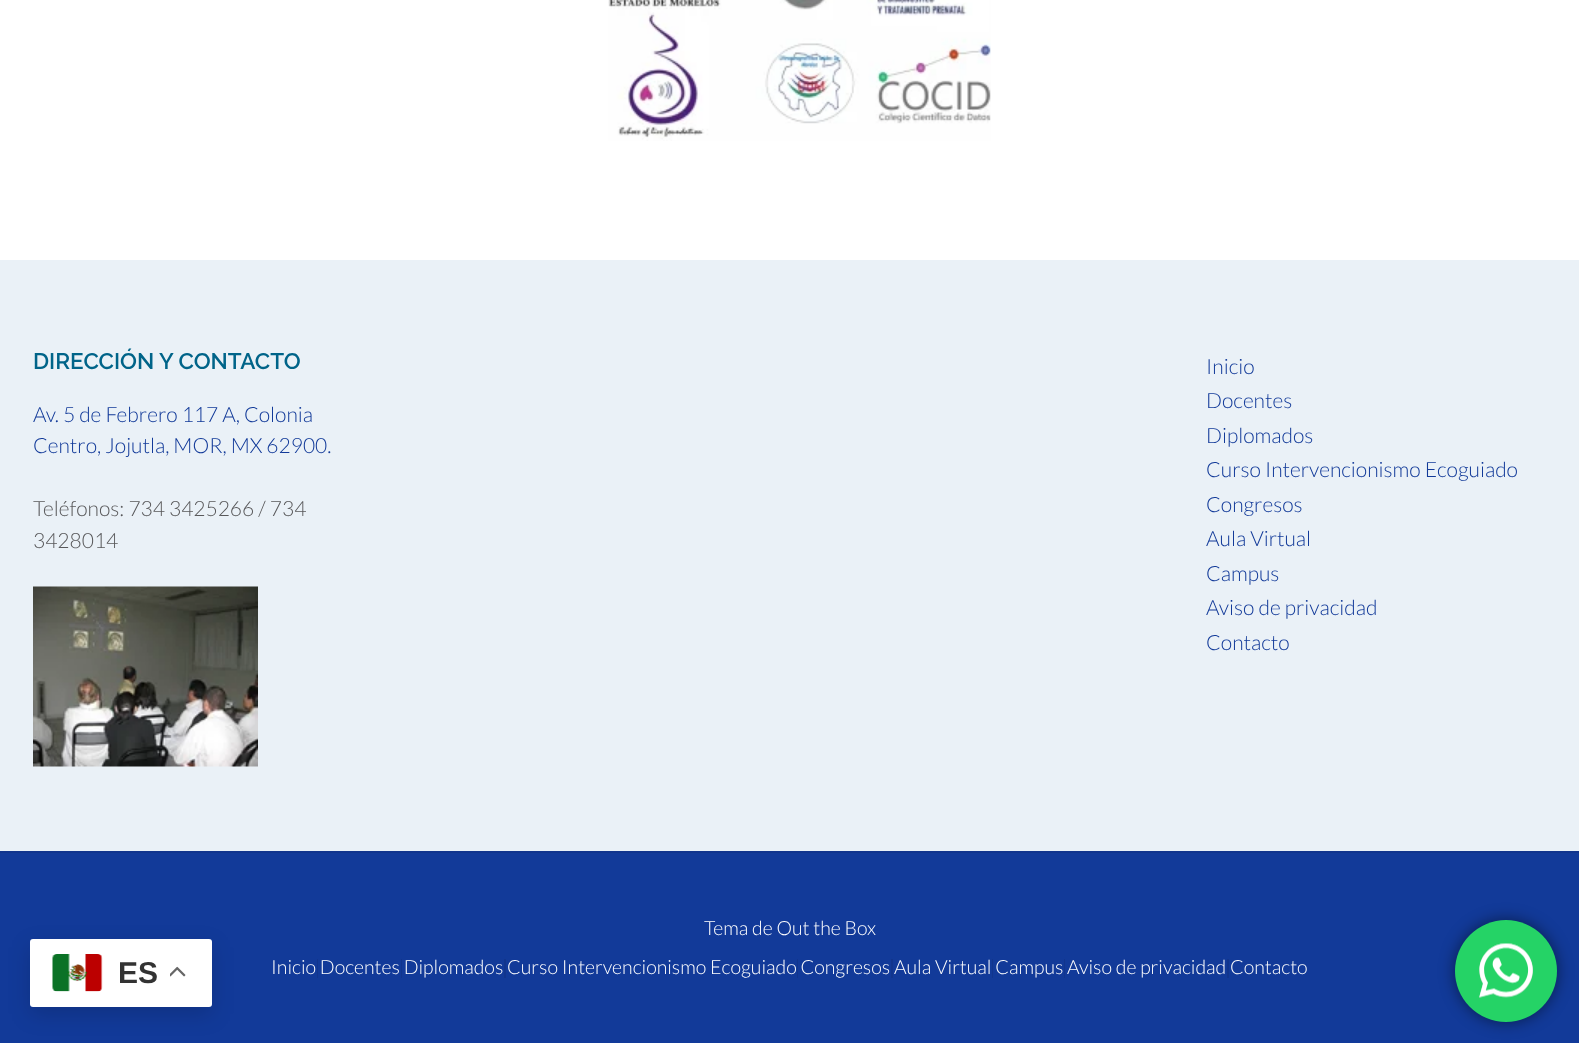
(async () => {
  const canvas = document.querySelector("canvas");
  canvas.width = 1579;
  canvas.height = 1043;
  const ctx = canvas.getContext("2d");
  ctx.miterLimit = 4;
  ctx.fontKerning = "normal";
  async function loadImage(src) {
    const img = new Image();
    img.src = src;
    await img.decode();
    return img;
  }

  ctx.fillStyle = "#ffffff";
  ctx.fillRect(0, 0, 1579, 1043);
  ctx.drawImage(await loadImage("img/1.png"), 608, 0, 383, 141);
  ctx.fillStyle = "#eaf1f7";
  ctx.fillRect(0, 260, 1579, 591);
  ctx.drawImage(await loadImage("img/2.png"), 33, 586, 225, 181);
  for (const [x, y, w, h, color] of [
    [0, 853, 1579, 190, "#123a99"],
    [0, 851, 1579, 2, "#11358d"],
    [317, 959, 1, 19, "#11358d"],
  ]) {
    ctx.fillStyle = color;
    ctx.fillRect(x, y, w, h);
  }
  ctx.fillStyle = "rgba(0, 0, 0, 0.15)";
  ctx.filter = "blur(11px)";
  ctx.beginPath();
  ctx.roundRect(30, 947, 182, 67, 3);
  ctx.fill();
  ctx.filter = "none";
  ctx.fillStyle = "#ffffff";
  ctx.beginPath();
  ctx.roundRect(30, 939, 182, 68, 3);
  ctx.fill();
  ctx.drawImage(await loadImage("img/3.png"), 52, 954, 51, 38);
  ctx.drawImage(await loadImage("img/4.png"), 170, 966, 16, 11);
  ctx.fillStyle = "rgba(0, 0, 0, 0.5)";
  ctx.filter = "blur(8px)";
  ctx.beginPath();
  ctx.roundRect(1455, 920, 102, 102, 51);
  ctx.fill();
  ctx.filter = "none";
  ctx.fillStyle = "#25d366";
  ctx.beginPath();
  ctx.arc(1506, 971, 51, 0, Math.PI * 2);
  ctx.fill();
  ctx.drawImage(await loadImage("img/5.png"), 1479, 943, 54, 55);
  ctx.font = "600 22.5px Raleway";
  ctx.fillStyle = "#006489";
  ctx.fillText("DIRECCIÓN Y CONTACTO", 33, 369);
  ctx.font = "300 21px Lato";
  ctx.fillStyle = "#123a99";
  ctx.fillText("Av. 5 de Febrero 117 A, Colonia", 33, 422);
  ctx.fillText("Centro, Jojutla, MOR, MX 62900.", 33, 453);
  ctx.fillStyle = "#58585a";
  ctx.fillText("Teléfonos: 734 3425266 / 734", 33, 516);
  ctx.fillText("3428014", 33, 548);
  ctx.fillStyle = "#123a99";
  for (const [text, x, y] of [
    ["Inicio", 1206, 374],
    ["Docentes", 1206, 408],
    ["Diplomados", 1206, 443],
    ["Curso Intervencionismo Ecoguiado", 1206, 477],
    ["Congresos", 1206, 512],
    ["Aula Virtual", 1206, 546],
    ["Campus", 1206, 581],
    ["Aviso de privacidad", 1206, 615],
    ["Contacto", 1206, 650],
  ]) {
    ctx.fillText(text, x, y);
  }
  ctx.font = "300 19.5px Lato";
  ctx.fillStyle = "#ffffff";
  ctx.fillText("Tema de Out the Box", 704, 935);
  ctx.fillText("Inicio Docentes Diplomados Curso Intervencionismo Ecoguiado Congresos Aula Virtual Campus Aviso de privacidad Contacto", 271, 974);
  for (const [x, y, w, h, color] of [
    [401, 959, 1, 19, "#11358d"],
    [504, 959, 2, 19, "#11358d"],
    [797, 959, 1, 19, "#11358d"],
    [891, 959, 2, 19, "#11358d"],
    [992, 959, 1, 19, "#11358d"],
    [1064, 959, 1, 19, "#11358d"],
    [1227, 959, 2, 19, "#11358d"],
  ]) {
    ctx.fillStyle = color;
    ctx.fillRect(x, y, w, h);
  }
  ctx.font = "bold 30px Liberation Sans";
  ctx.fillStyle = "#333333";
  ctx.fillText("ES", 118, 983);
})();
